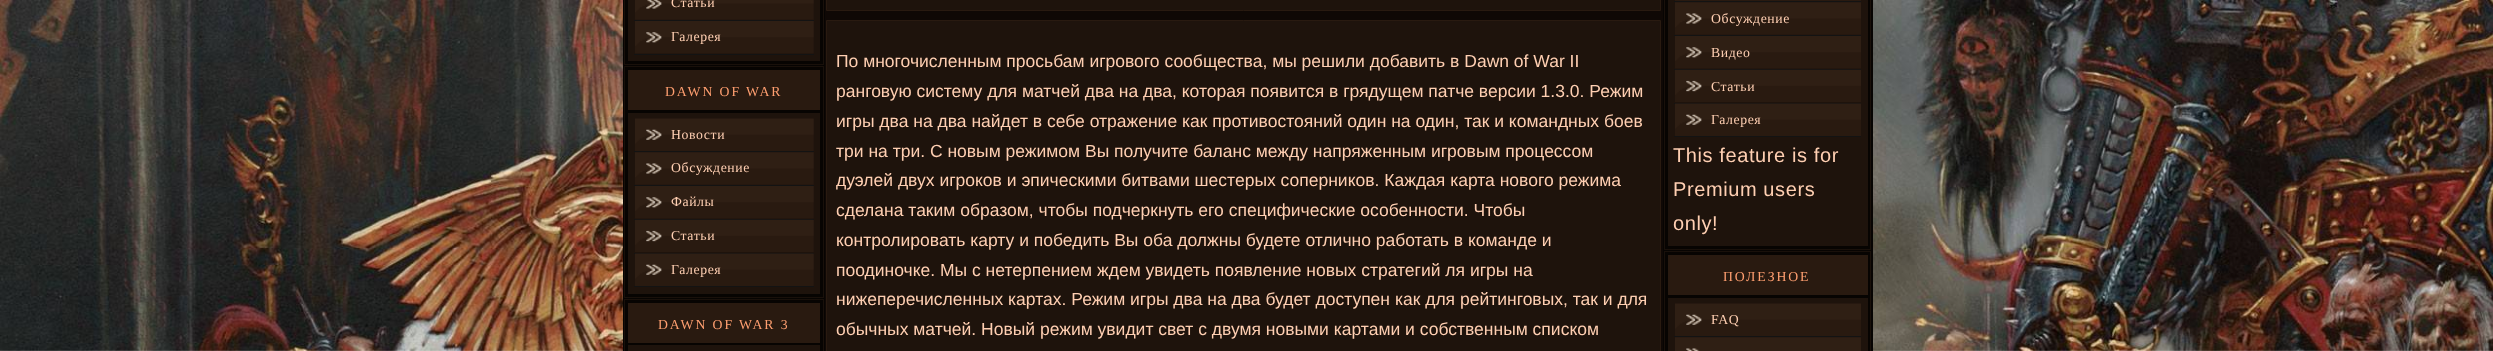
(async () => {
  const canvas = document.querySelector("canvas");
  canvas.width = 2493;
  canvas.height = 351;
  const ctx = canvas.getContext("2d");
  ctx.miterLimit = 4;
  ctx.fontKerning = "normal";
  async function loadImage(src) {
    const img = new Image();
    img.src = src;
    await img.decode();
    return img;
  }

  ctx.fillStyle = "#ffffff";
  ctx.fillRect(0, 0, 2493, 351);
  ctx.drawImage(await loadImage("img/1.png"), 0, 0, 2493, 351);
  ctx.fillStyle = "#070402";
  ctx.fillRect(623, 0, 202, 351);
  ctx.strokeStyle = "#19100a";
  ctx.strokeRect(624.5, -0.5, 199, 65);
  ctx.fillStyle = "#1e130c";
  ctx.fillRect(628, 0, 192, 61);
  ctx.fillStyle = "#131313";
  ctx.fillRect(634, 20, 180, 1);
  ctx.drawImage(await loadImage("img/2.png"), 635, 0, 179, 20);
  ctx.fillRect(634, 54, 180, 1);
  ctx.drawImage(await loadImage("img/3.png"), 635, 21, 179, 33);
  ctx.strokeRect(624.5, 66.5, 199, 231);
  for (const [x, y, w, h, color] of [
    [628, 70, 192, 40, "#291a10"],
    [628, 113, 192, 181, "#1e130c"],
    [634, 151, 180, 1, "#131313"],
  ]) {
    ctx.fillStyle = color;
    ctx.fillRect(x, y, w, h);
  }
  ctx.drawImage(await loadImage("img/4.png"), 635, 118, 179, 33);
  ctx.fillRect(634, 185, 180, 1);
  ctx.drawImage(await loadImage("img/5.png"), 635, 152, 179, 33);
  ctx.fillRect(634, 219, 180, 1);
  ctx.drawImage(await loadImage("img/3.png"), 635, 186, 179, 33);
  ctx.fillRect(634, 253, 180, 1);
  ctx.drawImage(await loadImage("img/6.png"), 635, 219, 179, 33);
  ctx.fillRect(634, 286, 180, 1);
  ctx.drawImage(await loadImage("img/7.png"), 635, 253, 179, 33);
  ctx.strokeRect(624.5, 299.5, 199, 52);
  for (const [x, y, w, h, color] of [
    [628, 303, 192, 40, "#291a10"],
    [628, 345, 192, 6, "#1e130c"],
    [825, 0, 838, 351, "#0f0805"],
  ]) {
    ctx.fillStyle = color;
    ctx.fillRect(x, y, w, h);
  }
  ctx.fillStyle = "#1e130c";
  ctx.beginPath();
  ctx.rect(826.5, -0.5, 834, 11);
  ctx.fill();
  ctx.strokeStyle = "#291a10";
  ctx.stroke();
  ctx.beginPath();
  ctx.rect(826.5, 20.5, 834, 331);
  ctx.fill();
  ctx.stroke();
  ctx.fillStyle = "#070402";
  ctx.fillRect(1663, 0, 210, 351);
  ctx.strokeStyle = "#19100a";
  ctx.strokeRect(1664.5, -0.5, 206, 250);
  for (const [x, y, w, h, color] of [
    [1668, 0, 200, 246, "#1e130c"],
    [1674, 1, 187, 1, "#131313"],
    [1675, 0, 186, 1, "#291a10"],
    [1674, 35, 187, 1, "#131313"],
  ]) {
    ctx.fillStyle = color;
    ctx.fillRect(x, y, w, h);
  }
  ctx.drawImage(await loadImage("img/8.png"), 1675, 2, 186, 33);
  ctx.fillRect(1674, 69, 187, 1);
  ctx.drawImage(await loadImage("img/9.png"), 1675, 36, 186, 33);
  ctx.fillRect(1674, 103, 187, 1);
  ctx.drawImage(await loadImage("img/10.png"), 1675, 69, 186, 33);
  ctx.fillRect(1674, 136, 187, 1);
  ctx.drawImage(await loadImage("img/11.png"), 1675, 103, 186, 33);
  ctx.strokeRect(1664.5, 251.5, 206, 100);
  for (const [x, y, w, h, color] of [
    [1668, 255, 200, 40, "#291a10"],
    [1668, 298, 200, 53, "#1e130c"],
    [1674, 336, 187, 1, "#131313"],
  ]) {
    ctx.fillStyle = color;
    ctx.fillRect(x, y, w, h);
  }
  ctx.drawImage(await loadImage("img/12.png"), 1675, 303, 186, 33);
  ctx.drawImage(await loadImage("img/13.png"), 1675, 337, 186, 14);
  ctx.letterSpacing = "0.6px";
  ctx.font = "13.75px Liberation Serif";
  ctx.fillStyle = "#ffcfb2";
  ctx.fillText("Статьи", 671, 7);
  ctx.fillText("Галерея", 671, 41);
  ctx.letterSpacing = "1.9px";
  ctx.fillStyle = "#ff9f70";
  ctx.fillText("DAWN OF WAR", 665, 96);
  ctx.letterSpacing = "0.6px";
  ctx.fillStyle = "#ffcfb2";
  for (const [text, x, y] of [
    ["Новости", 671, 139],
    ["Обсуждение", 671, 172],
    ["Файлы", 671, 206],
    ["Статьи", 671, 240],
    ["Галерея", 671, 274],
  ]) {
    ctx.fillText(text, x, y);
  }
  ctx.letterSpacing = "1.9px";
  ctx.fillStyle = "#ff9f70";
  ctx.fillText("DAWN OF WAR 3", 658, 329);
  ctx.letterSpacing = "0px";
  ctx.font = "17.5px Liberation Sans";
  ctx.fillStyle = "#ffcfb2";
  for (const [text, x, y] of [
    ["По многочисленным просьбам игрового сообщества, мы решили добавить в Dawn of War II", 836, 67],
    ["ранговую систему для матчей два на два, которая появится в грядущем патче версии 1.3.0. Режим", 836, 97],
    ["игры два на два найдет в себе отражение как противостояний один на один, так и командных боев", 836, 127],
    ["три на три. С новым режимом Вы получите баланс между напряженным игровым процессом", 836, 157],
    ["дуэлей двух игроков и эпическими битвами шестерых соперников. Каждая карта нового режима", 836, 186],
    ["сделана таким образом, чтобы подчеркнуть его специфические особенности. Чтобы", 836, 216],
    ["контролировать карту и победить Вы оба должны будете отлично работать в команде и", 836, 246],
    ["поодиночке. Мы с нетерпением ждем увидеть появление новых стратегий ля игры на", 836, 276],
    ["нижеперечисленных картах. Режим игры два на два будет доступен как для рейтинговых, так и для", 836, 305],
    ["обычных матчей. Новый режим увидит свет с двумя новыми картами и собственным списком", 836, 335],
  ]) {
    ctx.fillText(text, x, y);
  }
  ctx.letterSpacing = "0.6px";
  ctx.font = "13.75px Liberation Serif";
  for (const [text, x, y] of [
    ["Обсуждение", 1711, 23],
    ["Видео", 1711, 57],
    ["Статьи", 1711, 91],
    ["Галерея", 1711, 124],
  ]) {
    ctx.fillText(text, x, y);
  }
  ctx.font = "20px Liberation Sans";
  for (const [text, x, y] of [
    ["This feature is for", 1673, 162],
    ["Premium users", 1673, 196],
    ["only!", 1673, 230],
  ]) {
    ctx.fillText(text, x, y);
  }
  ctx.letterSpacing = "1.9px";
  ctx.font = "13.75px Liberation Serif";
  ctx.fillStyle = "#ff9f70";
  ctx.fillText("ПОЛЕЗНОЕ", 1723, 281);
  ctx.letterSpacing = "0.6px";
  ctx.fillStyle = "#ffcfb2";
  ctx.fillText("FAQ", 1711, 324);
})();
